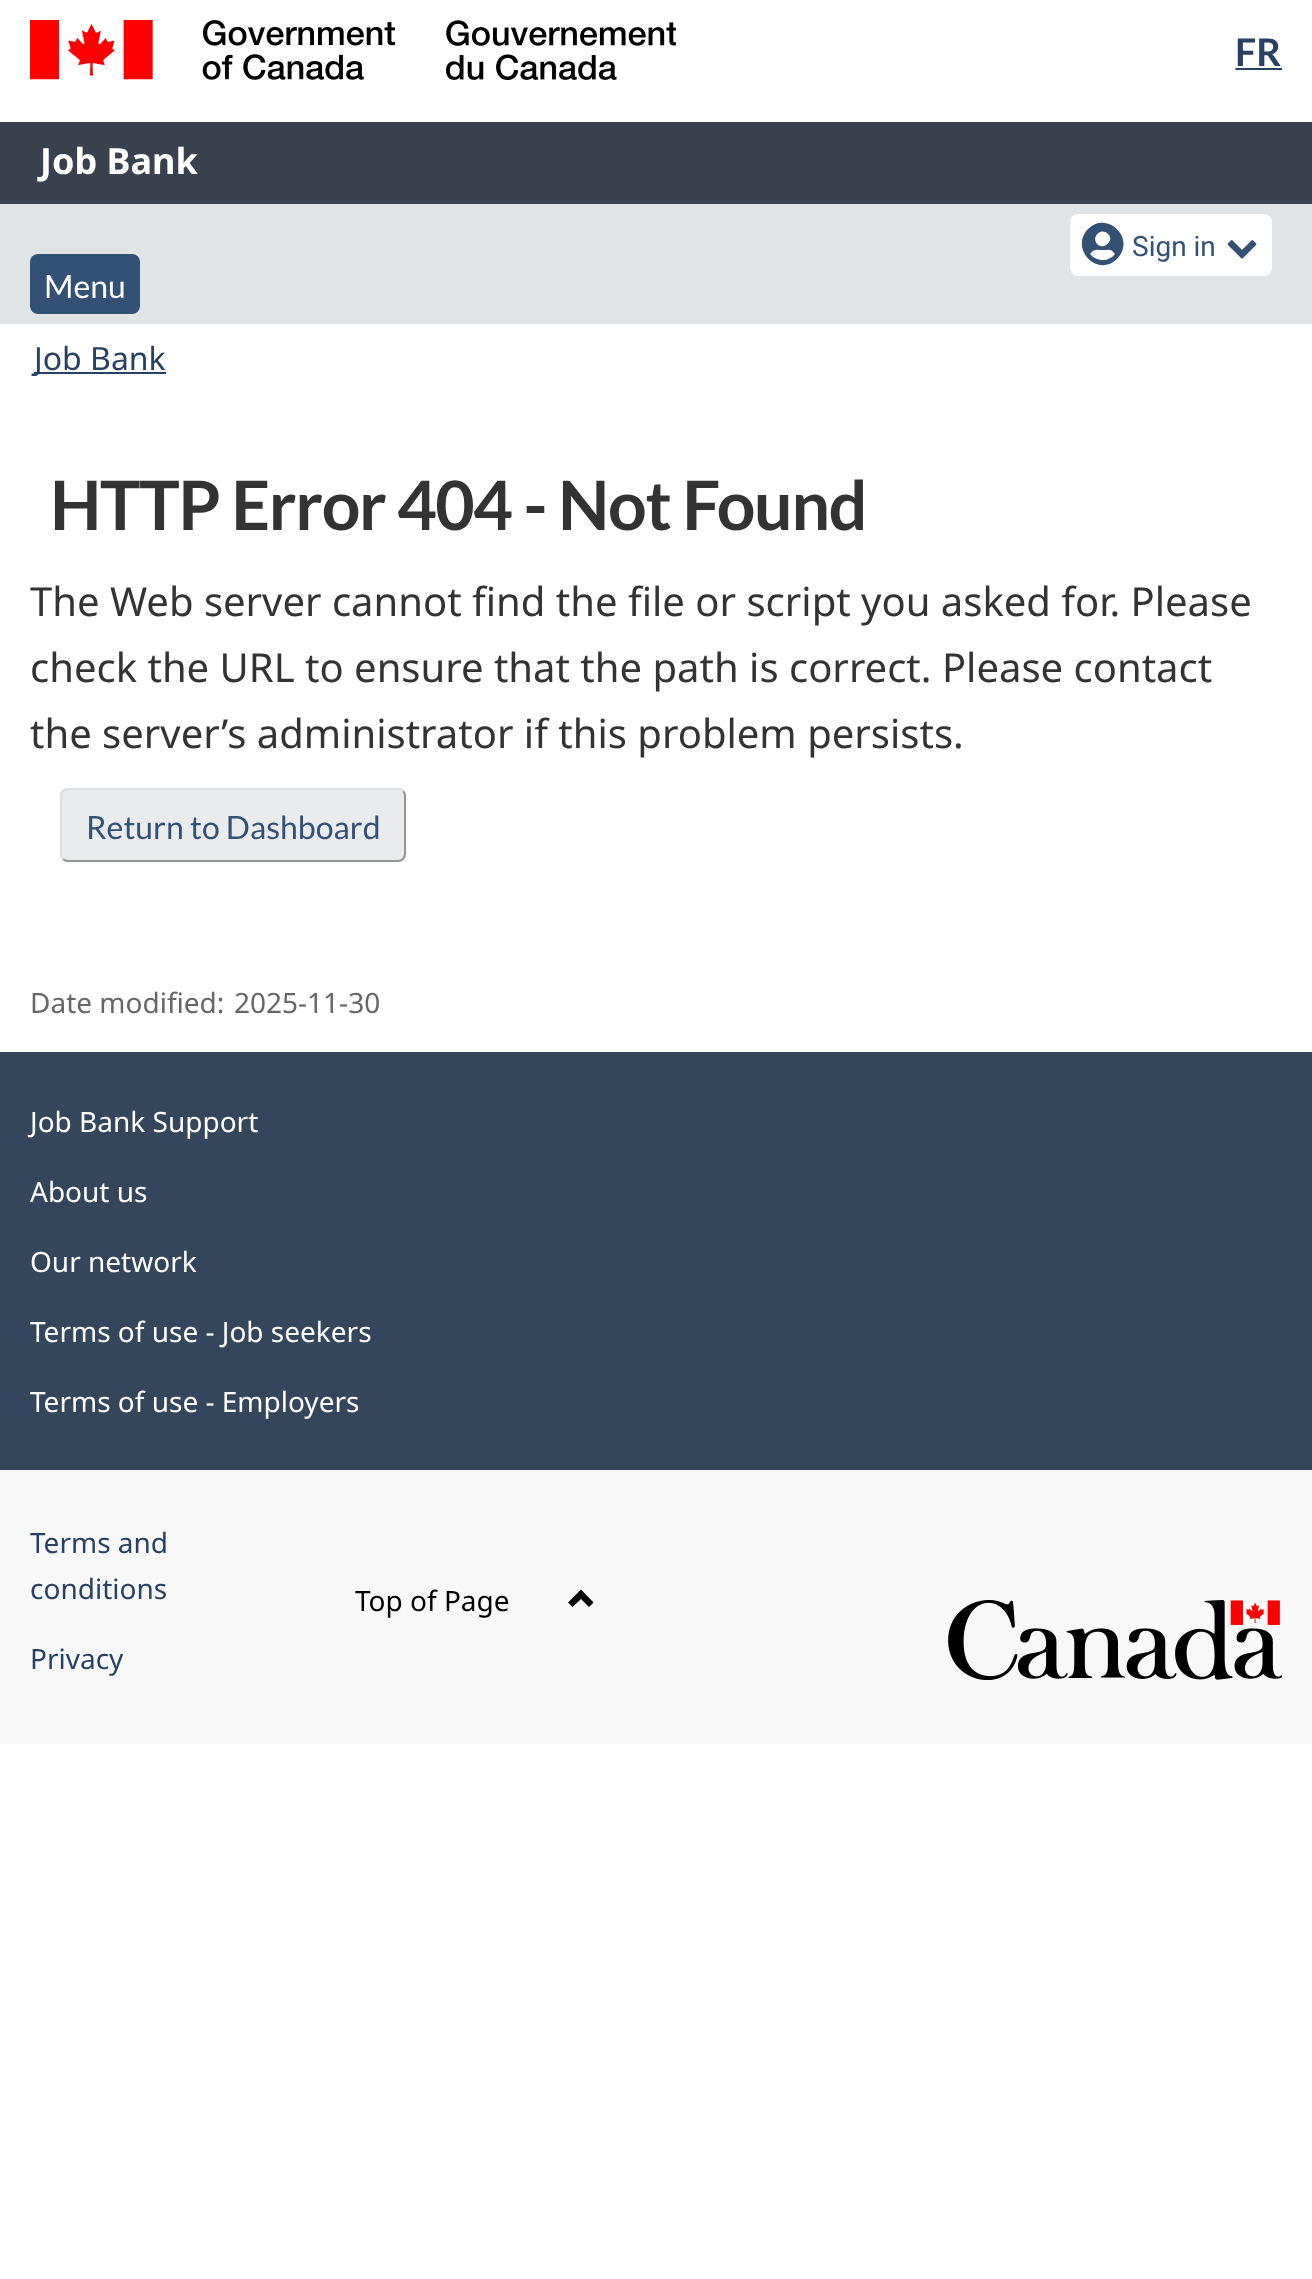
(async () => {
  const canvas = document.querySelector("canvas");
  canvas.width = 1312;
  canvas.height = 2279;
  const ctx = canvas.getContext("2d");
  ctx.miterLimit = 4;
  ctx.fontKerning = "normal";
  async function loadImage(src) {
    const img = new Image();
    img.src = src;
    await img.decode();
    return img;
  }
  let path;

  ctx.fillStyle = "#ffffff";
  ctx.fillRect(0, 0, 1312, 2279);
  ctx.drawImage(await loadImage("img/1.png"), 30, 20, 646, 60);
  path = new Path2D("M1235.5 69H1282");
  ctx.strokeStyle = "#284162";
  ctx.lineWidth = 2;
  ctx.setLineDash([2, 2]);
  ctx.stroke(path);
  for (const [x, y, w, h, color] of [
    [1236, 68, 46, 2, "#284162"],
    [0, 122, 1312, 82, "#38414d"],
    [0, 204, 1312, 120, "#e1e4e7"],
  ]) {
    ctx.fillStyle = color;
    ctx.fillRect(x, y, w, h);
  }
  ctx.fillStyle = "#ffffff";
  ctx.beginPath();
  ctx.roundRect(1070, 214, 202, 62, 8);
  ctx.fill();
  ctx.fillStyle = "#335075";
  path = new Path2D("M1088 229C1107 210 1137 239 1117 259C1098 278 1069 249 1088 229ZM1108 234C1101 227 1091 237 1097 244C1104 251 1115 240 1108 234ZM1090 254C1097 262 1109 262 1115 254C1111 248 1108 250 1103 250C1098 250 1094 248 1090 254Z");
  ctx.fill(path);
  ctx.drawImage(await loadImage("img/2.png"), 1227, 240, 30, 19);
  ctx.beginPath();
  ctx.roundRect(30, 254, 110, 60, 8);
  ctx.fill();
  ctx.fillStyle = "#284162";
  ctx.fillRect(34, 372, 132, 2);
  ctx.fillStyle = "#eaebed";
  ctx.beginPath();
  ctx.roundRect(60, 788, 346, 74, 8);
  ctx.fill();
  path = new Path2D("M403 791C404.5 792.5 405 794 405 796V854C405 856 404.5 857.5 403 859C401.5 860.5 400 861 398 861H68C66 861 64.5 860.5 63 859");
  ctx.strokeStyle = "#939496";
  ctx.setLineDash([]);
  ctx.stroke(path);
  path = new Path2D("M63 859C61.5 857.5 61 856 61 854V796C61 794 61.5 792.5 63 791C64.5 789.5 66 789 68 789H398C400 789 401.5 789.5 403 791");
  ctx.strokeStyle = "#dcdee1";
  ctx.stroke(path);
  ctx.fillStyle = "#33465c";
  ctx.fillRect(0, 1052, 1312, 418);
  ctx.fillStyle = "#f8f8f8";
  ctx.fillRect(0, 1470, 1312, 274);
  ctx.fillStyle = "#000000";
  path = new Path2D("M593.5 1602.5L589 1607L581 1599L572.5 1607L568 1602.5L581 1589.5Z");
  ctx.fill(path);
  ctx.drawImage(await loadImage("img/3.png"), 948, 1600, 334, 80);
  ctx.font = "bold 38px Lato";
  ctx.fillStyle = "#284162";
  ctx.fillText("FR", 1235, 66);
  ctx.font = "bold 36px Noto Sans";
  ctx.fillStyle = "#ffffff";
  ctx.fillText("Job Bank", 40, 174);
  ctx.font = "28px Roboto";
  ctx.fillStyle = "#335075";
  ctx.fillText("Sign in", 1132, 256);
  ctx.font = "32px Lato";
  ctx.fillStyle = "#ffffff";
  ctx.fillText("Menu", 44, 298);
  ctx.font = "32px Noto Sans";
  ctx.fillStyle = "#284162";
  ctx.fillText("Job Bank", 34, 370);
  ctx.letterSpacing = "-1.35px";
  ctx.font = "bold 68px Lato";
  ctx.fillStyle = "#333333";
  ctx.fillText("HTTP Error 404 - Not Found", 50, 530);
  ctx.letterSpacing = "0px";
  ctx.font = "40px Noto Sans";
  for (const [text, x, y] of [
    ["The Web server cannot find the file or script you asked for. Please", 30, 616],
    ["check the URL to ensure that the path is correct. Please contact", 30, 682],
    ["the server’s administrator if this problem persists.", 30, 748],
  ]) {
    ctx.fillText(text, x, y);
  }
  ctx.font = "32px Lato";
  ctx.fillStyle = "#335075";
  ctx.fillText("Return to Dashboard", 86, 839);
  ctx.font = "28px Noto Sans";
  ctx.fillStyle = "#666666";
  ctx.fillText("Date modified:", 30, 1013);
  ctx.fillText("2025-11-30", 234, 1013);
  ctx.fillStyle = "#ffffff";
  for (const [text, x, y] of [
    ["Job Bank Support", 30, 1132],
    ["About us", 30, 1202],
    ["Our network", 30, 1272],
    ["Terms of use - Job seekers", 30, 1342],
    ["Terms of use - Employers", 30, 1412],
  ]) {
    ctx.fillText(text, x, y);
  }
  ctx.fillStyle = "#284162";
  for (const [text, x, y] of [
    ["Terms and", 30, 1553],
    ["conditions", 30, 1599],
    ["Privacy", 30, 1669],
  ]) {
    ctx.fillText(text, x, y);
  }
  ctx.fillStyle = "#000000";
  ctx.fillText("Top of Page", 355, 1611);
})();
